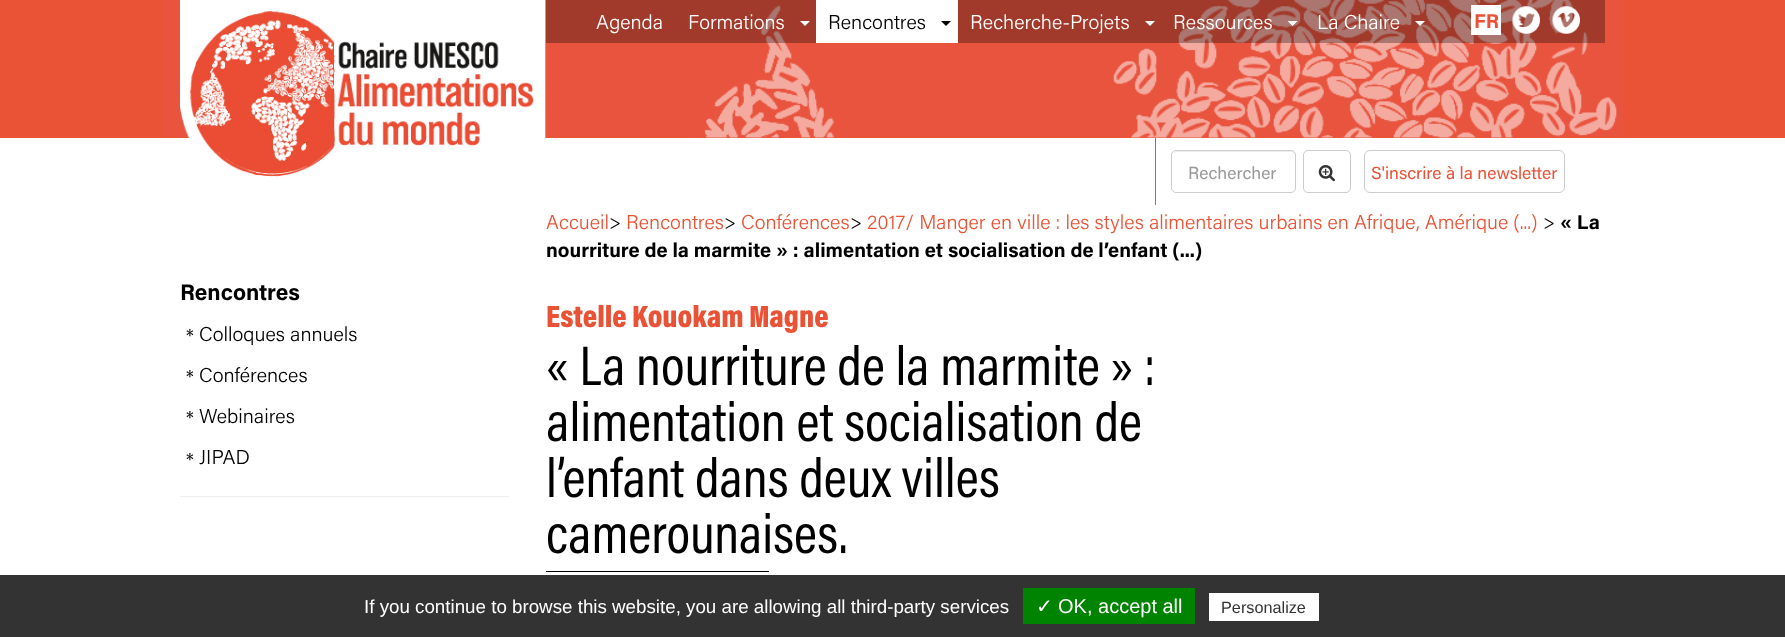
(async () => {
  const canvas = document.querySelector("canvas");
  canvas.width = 1785;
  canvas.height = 637;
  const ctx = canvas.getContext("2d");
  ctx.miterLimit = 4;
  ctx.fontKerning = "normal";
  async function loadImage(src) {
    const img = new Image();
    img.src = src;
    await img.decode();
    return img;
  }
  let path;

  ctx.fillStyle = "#ffffff";
  ctx.fillRect(0, 0, 1785, 637);
  ctx.fillStyle = "#ea5336";
  ctx.fillRect(0, 0, 1785, 138);
  ctx.drawImage(await loadImage("img/1.png"), 161, 0, 1463, 138);
  ctx.drawImage(await loadImage("img/2.png"), 180, 0, 366, 177);
  ctx.fillStyle = "rgba(0, 0, 0, 0.3)";
  ctx.fillRect(546, 0, 1059, 43);
  ctx.fillStyle = "#ffffff";
  path = new Path2D("M800 21H810L805 26Z");
  ctx.fill(path);
  ctx.fillRect(816, 0, 142, 43);
  ctx.fillStyle = "#000000";
  path = new Path2D("M941 21H951L946 26Z");
  ctx.fill(path);
  ctx.fillStyle = "#ffffff";
  path = new Path2D("M1145 21H1155L1150 26Z");
  ctx.fill(path);
  path = new Path2D("M1287.5 21H1297.5L1292.5 26Z");
  ctx.fill(path);
  path = new Path2D("M1415 21H1425L1420 26Z");
  ctx.fill(path);
  ctx.fillRect(1471, 5, 30, 30);
  ctx.drawImage(await loadImage("img/3.png"), 1512, 6, 28, 28);
  ctx.drawImage(await loadImage("img/4.png"), 1552, 6, 28, 28);
  ctx.fillStyle = "#ea5235";
  ctx.fillRect(1155, 138, 1, 67);
  ctx.fillStyle = "#ececec";
  path = new Path2D("M1176 152H1291C1293 152 1295 154 1295 156L1294 152L1291 151H1176C1175 151 1174 152 1174 153Z");
  ctx.fill(path);
  ctx.beginPath();
  ctx.roundRect(1171.5, 150.5, 124, 42, 4.5);
  ctx.strokeStyle = "#cccccc";
  ctx.stroke();
  ctx.beginPath();
  ctx.roundRect(1303.5, 150.5, 47, 42, 4.5);
  ctx.stroke();
  ctx.drawImage(await loadImage("img/5.png"), 1318, 165, 17, 17);
  ctx.beginPath();
  ctx.roundRect(1364.5, 150.5, 200, 42, 5.5);
  ctx.stroke();
  for (const [x, y, w, h, color] of [
    [180, 496, 329, 1, "#eeeeee"],
    [546, 571, 223, 1, "#000000"],
    [0, 575, 1785, 62, "#333333"],
    [1023, 588, 172, 36, "#008300"],
    [1209, 593, 110, 28, "#ffffff"],
  ]) {
    ctx.fillStyle = color;
    ctx.fillRect(x, y, w, h);
  }
  ctx.font = "300 20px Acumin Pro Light";
  ctx.fillText("Agenda", 596, 29);
  ctx.fillText("Formations", 688, 29);
  ctx.fillStyle = "#000000";
  ctx.fillText("Rencontres", 828, 29);
  ctx.fillStyle = "#ffffff";
  for (const [text, x, y] of [
    ["Recherche-Projets", 970, 29],
    ["Ressources", 1173, 29],
    ["La Chaire", 1317, 29],
  ]) {
    ctx.fillText(text, x, y);
  }
  ctx.font = "bold 20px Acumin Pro";
  ctx.fillStyle = "#ea5235";
  ctx.fillText("FR", 1474, 28);
  ctx.font = "17.5px Acumin Pro";
  ctx.fillStyle = "#999999";
  ctx.fillText("Rechercher", 1188, 179);
  ctx.fillStyle = "#ea5235";
  ctx.fillText("S'inscrire à la newsletter", 1371, 179);
  ctx.font = "bold 22.5px Acumin Pro";
  ctx.fillStyle = "#000000";
  ctx.fillText("Rencontres", 180, 300);
  ctx.font = "300 20px Acumin Pro Light";
  for (const [text, x, y] of [
    ["*", 186, 343],
    ["Colloques annuels", 199, 341],
    ["*", 186, 384],
    ["Conférences", 199, 382],
    ["*", 186, 425],
    ["Webinaires", 199, 423],
    ["*", 186, 467],
    ["JIPAD", 199, 464],
  ]) {
    ctx.fillText(text, x, y);
  }
  ctx.fillStyle = "#ea5235";
  ctx.fillText("Accueil", 546, 229);
  ctx.fillStyle = "#000000";
  ctx.fillText(">", 609, 229);
  ctx.fillStyle = "#ea5235";
  ctx.fillText("Rencontres", 626, 229);
  ctx.fillStyle = "#000000";
  ctx.fillText(">", 724, 229);
  ctx.fillStyle = "#ea5235";
  ctx.fillText("Conférences", 741, 229);
  ctx.fillStyle = "#000000";
  ctx.fillText(">", 850, 229);
  ctx.fillStyle = "#ea5235";
  ctx.fillText("2017/ Manger en ville : les styles alimentaires urbains en Afrique, Amérique (...)", 867, 229);
  ctx.fillStyle = "#000000";
  ctx.fillText(">", 1543, 229);
  ctx.font = "bold 20px Acumin Pro";
  ctx.fillText("« La", 1560, 229);
  ctx.fillText("nourriture de la marmite » : alimentation et socialisation de l’enfant (...)", 546, 257);
  ctx.font = "900 31.25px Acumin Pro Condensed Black";
  ctx.fillStyle = "#ea5235";
  ctx.fillText("Estelle Kouokam Magne", 546, 327);
  ctx.font = "56.25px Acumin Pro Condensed";
  ctx.fillStyle = "#000000";
  for (const [text, x, y] of [
    ["« La nourriture de la marmite » :", 546, 385],
    ["alimentation et socialisation de", 546, 441],
    ["l’enfant dans deux villes", 546, 497],
    ["camerounaises.", 546, 553],
  ]) {
    ctx.fillText(text, x, y);
  }
  ctx.font = "18.75px Liberation Sans";
  ctx.fillStyle = "#ffffff";
  ctx.fillText("If you continue to browse this website, you are allowing all third-party services", 364, 613);
  ctx.font = "20px DejaVu Sans";
  ctx.fillText("✓", 1036, 613);
  ctx.font = "20px Liberation Sans";
  ctx.fillText("OK, accept all", 1058, 613);
  ctx.font = "16.25px Liberation Sans";
  ctx.fillStyle = "#333333";
  ctx.fillText("Personalize", 1221, 613);
})();
